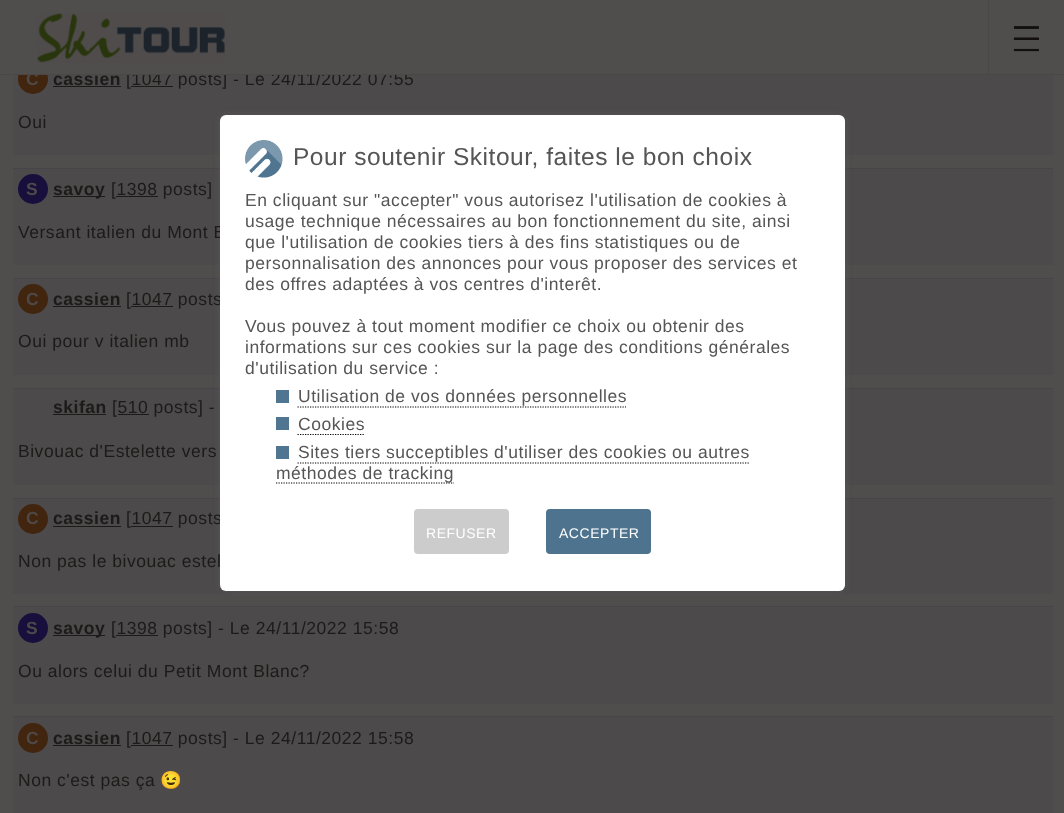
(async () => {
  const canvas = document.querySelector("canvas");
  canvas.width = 1064;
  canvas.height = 813;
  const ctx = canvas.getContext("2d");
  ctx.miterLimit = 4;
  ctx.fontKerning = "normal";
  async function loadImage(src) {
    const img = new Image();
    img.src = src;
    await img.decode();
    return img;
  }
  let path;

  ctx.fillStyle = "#504d4d";
  ctx.fillRect(0, 0, 1064, 813);
  ctx.drawImage(await loadImage("img/1.png"), 37, 13, 188, 50);
  ctx.drawImage(await loadImage("img/2.png"), 1013, 26, 26, 26);
  ctx.fillStyle = "#4d4a4b";
  ctx.fillRect(13, 75, 1040, 80);
  ctx.fillStyle = "#41250f";
  ctx.beginPath();
  ctx.arc(33, 79, 15, 0, Math.PI * 2);
  ctx.fill();
  for (const [x, y, w, h, color] of [
    [53, 86, 68, 1, "#1d1a1a"],
    [131, 86, 42, 1, "#1d1a1a"],
    [13, 169, 1040, 96, "#4d4a4b"],
    [13, 168, 1040, 1, "#464649"],
  ]) {
    ctx.fillStyle = color;
    ctx.fillRect(x, y, w, h);
  }
  ctx.fillStyle = "#190f3d";
  ctx.beginPath();
  ctx.arc(33, 189, 15, 0, Math.PI * 2);
  ctx.fill();
  for (const [x, y, w, h, color] of [
    [53, 196, 52, 1, "#1d1a1a"],
    [116, 196, 42, 1, "#1d1a1a"],
    [13, 279, 1040, 96, "#4d4a4b"],
    [13, 278, 1040, 1, "#464649"],
  ]) {
    ctx.fillStyle = color;
    ctx.fillRect(x, y, w, h);
  }
  ctx.fillStyle = "#41250f";
  ctx.beginPath();
  ctx.arc(33, 299, 15, 0, Math.PI * 2);
  ctx.fill();
  for (const [x, y, w, h, color] of [
    [53, 306, 68, 1, "#1d1a1a"],
    [131, 306, 42, 1, "#1d1a1a"],
    [13, 389, 1040, 96, "#4d4a4b"],
    [13, 388, 1040, 1, "#464649"],
    [53, 414, 53, 1, "#1d1a1a"],
    [118, 414, 31, 1, "#1d1a1a"],
    [13, 499, 1040, 95, "#4d4a4b"],
    [13, 498, 1040, 1, "#464649"],
  ]) {
    ctx.fillStyle = color;
    ctx.fillRect(x, y, w, h);
  }
  ctx.fillStyle = "#41250f";
  ctx.beginPath();
  ctx.arc(33, 519, 15, 0, Math.PI * 2);
  ctx.fill();
  for (const [x, y, w, h, color] of [
    [53, 526, 68, 1, "#1d1a1a"],
    [131, 526, 42, 1, "#1d1a1a"],
    [13, 607, 1040, 97, "#4d4a4b"],
    [13, 606, 1040, 1, "#464649"],
  ]) {
    ctx.fillStyle = color;
    ctx.fillRect(x, y, w, h);
  }
  ctx.fillStyle = "#190f3d";
  ctx.beginPath();
  ctx.arc(33, 628, 15, 0, Math.PI * 2);
  ctx.fill();
  for (const [x, y, w, h, color] of [
    [53, 635, 52, 1, "#1d1a1a"],
    [116, 635, 42, 1, "#1d1a1a"],
    [13, 717, 1040, 96, "#4d4a4b"],
    [13, 716, 1040, 1, "#464649"],
  ]) {
    ctx.fillStyle = color;
    ctx.fillRect(x, y, w, h);
  }
  ctx.fillStyle = "#41250f";
  ctx.beginPath();
  ctx.arc(33, 738, 15, 0, Math.PI * 2);
  ctx.fill();
  ctx.fillStyle = "#1d1a1a";
  ctx.fillRect(53, 745, 68, 1);
  ctx.fillRect(131, 745, 42, 1);
  ctx.fillStyle = "#555555";
  ctx.filter = "blur(3px)";
  ctx.beginPath();
  ctx.roundRect(220, 115, 625, 476, 6);
  ctx.fill();
  ctx.filter = "none";
  ctx.letterSpacing = "0.53px";
  ctx.font = "bold 17.5px Liberation Sans";
  ctx.fillStyle = "#4e4948";
  ctx.fillText("C", 26, 85);
  ctx.fillStyle = "#1d1a1a";
  ctx.fillText("cassien", 53, 85);
  ctx.font = "17.5px Liberation Sans";
  ctx.fillText("[1047 posts] - Le 24/11/2022 07:55", 126, 85);
  for (const [x, y, w, h, color] of [
    [0, 74, 1064, 1, "#4b4747"],
    [988, 0, 1, 75, "#4b4747"],
    [19, 64, 394, 10, "#504d4d"],
  ]) {
    ctx.fillStyle = color;
    ctx.fillRect(x, y, w, h);
  }
  ctx.fillStyle = "#1d1a1a";
  ctx.fillText("Oui", 18, 128);
  ctx.font = "bold 17.5px Liberation Sans";
  ctx.fillStyle = "#4e4948";
  ctx.fillText("S", 26, 195);
  ctx.fillStyle = "#1d1a1a";
  ctx.fillText("savoy", 53, 195);
  ctx.font = "17.5px Liberation Sans";
  ctx.fillText("[1398 posts]", 111, 195);
  ctx.fillText("Versant italien du Mont B", 18, 238);
  ctx.font = "bold 17.5px Liberation Sans";
  ctx.fillStyle = "#4e4948";
  ctx.fillText("C", 26, 305);
  ctx.fillStyle = "#1d1a1a";
  ctx.fillText("cassien", 53, 305);
  ctx.font = "17.5px Liberation Sans";
  ctx.fillText("[1047 posts", 126, 305);
  ctx.fillText("Oui pour v italien mb", 18, 347);
  ctx.font = "bold 17.5px Liberation Sans";
  ctx.fillText("skifan", 53, 413);
  ctx.font = "17.5px Liberation Sans";
  ctx.fillText("[510 posts] -", 112, 413);
  ctx.fillText("Bivouac d'Estelette vers", 18, 457);
  ctx.font = "bold 17.5px Liberation Sans";
  ctx.fillStyle = "#4e4948";
  ctx.fillText("C", 26, 524);
  ctx.fillStyle = "#1d1a1a";
  ctx.fillText("cassien", 53, 524);
  ctx.font = "17.5px Liberation Sans";
  ctx.fillText("[1047 posts", 126, 524);
  ctx.fillText("Non pas le bivouac estel", 18, 567);
  ctx.font = "bold 17.5px Liberation Sans";
  ctx.fillStyle = "#4e4948";
  ctx.fillText("S", 26, 634);
  ctx.fillStyle = "#1d1a1a";
  ctx.fillText("savoy", 53, 634);
  ctx.font = "17.5px Liberation Sans";
  ctx.fillText("[1398 posts] - Le 24/11/2022 15:58", 111, 634);
  ctx.fillText("Ou alors celui du Petit Mont Blanc?", 18, 677);
  ctx.font = "bold 17.5px Liberation Sans";
  ctx.fillStyle = "#4e4948";
  ctx.fillText("C", 26, 744);
  ctx.fillStyle = "#1d1a1a";
  ctx.fillText("cassien", 53, 744);
  ctx.font = "17.5px Liberation Sans";
  ctx.fillText("[1047 posts] - Le 24/11/2022 15:58", 126, 744);
  ctx.fillText("Non c'est pas ça", 18, 786);
  ctx.font = "17.5px Noto Color Emoji";
  ctx.fillText("😉", 160, 786);
  ctx.fillStyle = "#ffffff";
  ctx.beginPath();
  ctx.roundRect(220, 115, 625, 476, 6);
  ctx.fill();
  ctx.drawImage(await loadImage("img/3.png"), 245, 140, 38, 38);
  ctx.font = "24.5px Liberation Sans";
  ctx.fillStyle = "#555555";
  ctx.fillText("Pour soutenir Skitour, faites le bon choix", 293, 165);
  ctx.font = "17.5px Liberation Sans";
  for (const [text, x, y] of [
    ["En cliquant sur \"accepter\" vous autorisez l'utilisation de cookies à", 245, 206],
    ["usage technique nécessaires au bon fonctionnement du site, ainsi", 245, 227],
    ["que l'utilisation de cookies tiers à des fins statistiques ou de", 245, 248],
    ["personnalisation des annonces pour vous proposer des services et", 245, 269],
    ["des offres adaptées à vos centres d'interêt.", 245, 290],
    ["Vous pouvez à tout moment modifier ce choix ou obtenir des", 245, 332],
    ["informations sur ces cookies sur la page des conditions générales", 245, 353],
    ["d'utilisation du service :", 245, 374],
  ]) {
    ctx.fillText(text, x, y);
  }
  ctx.fillStyle = "#507590";
  ctx.fillRect(276, 390, 13, 13);
  ctx.fillStyle = "#555555";
  ctx.fillText("Utilisation de vos données personnelles", 298, 402);
  path = new Path2D("M297.5 407H626");
  ctx.strokeStyle = "#000000";
  ctx.lineWidth = 1.2;
  ctx.setLineDash([1.25, 1.25]);
  ctx.stroke(path);
  ctx.fillStyle = "#507590";
  ctx.fillRect(276, 417, 13, 13);
  ctx.fillStyle = "#555555";
  ctx.fillText("Cookies", 298, 430);
  path = new Path2D("M297.5 434.5H365");
  ctx.stroke(path);
  ctx.fillStyle = "#507590";
  ctx.fillRect(276, 446, 13, 13);
  ctx.fillStyle = "#555555";
  ctx.fillText("Sites tiers succeptibles d'utiliser des cookies ou autres", 298, 458);
  path = new Path2D("M297.5 463H749");
  ctx.stroke(path);
  path = new Path2D("M276 483H454");
  ctx.stroke(path);
  ctx.fillText("méthodes de tracking", 276, 479);
  ctx.fillStyle = "#cccccc";
  ctx.beginPath();
  ctx.roundRect(414, 509, 95, 45, 4);
  ctx.fill();
  ctx.font = "14px Liberation Sans";
  ctx.fillStyle = "#ffffff";
  ctx.fillText("REFUSER", 426, 538);
  ctx.fillStyle = "#4d738e";
  ctx.beginPath();
  ctx.roundRect(546, 509, 105, 45, 4);
  ctx.fill();
  ctx.fillStyle = "#ffffff";
  ctx.fillText("ACCEPTER", 559, 538);
})();
